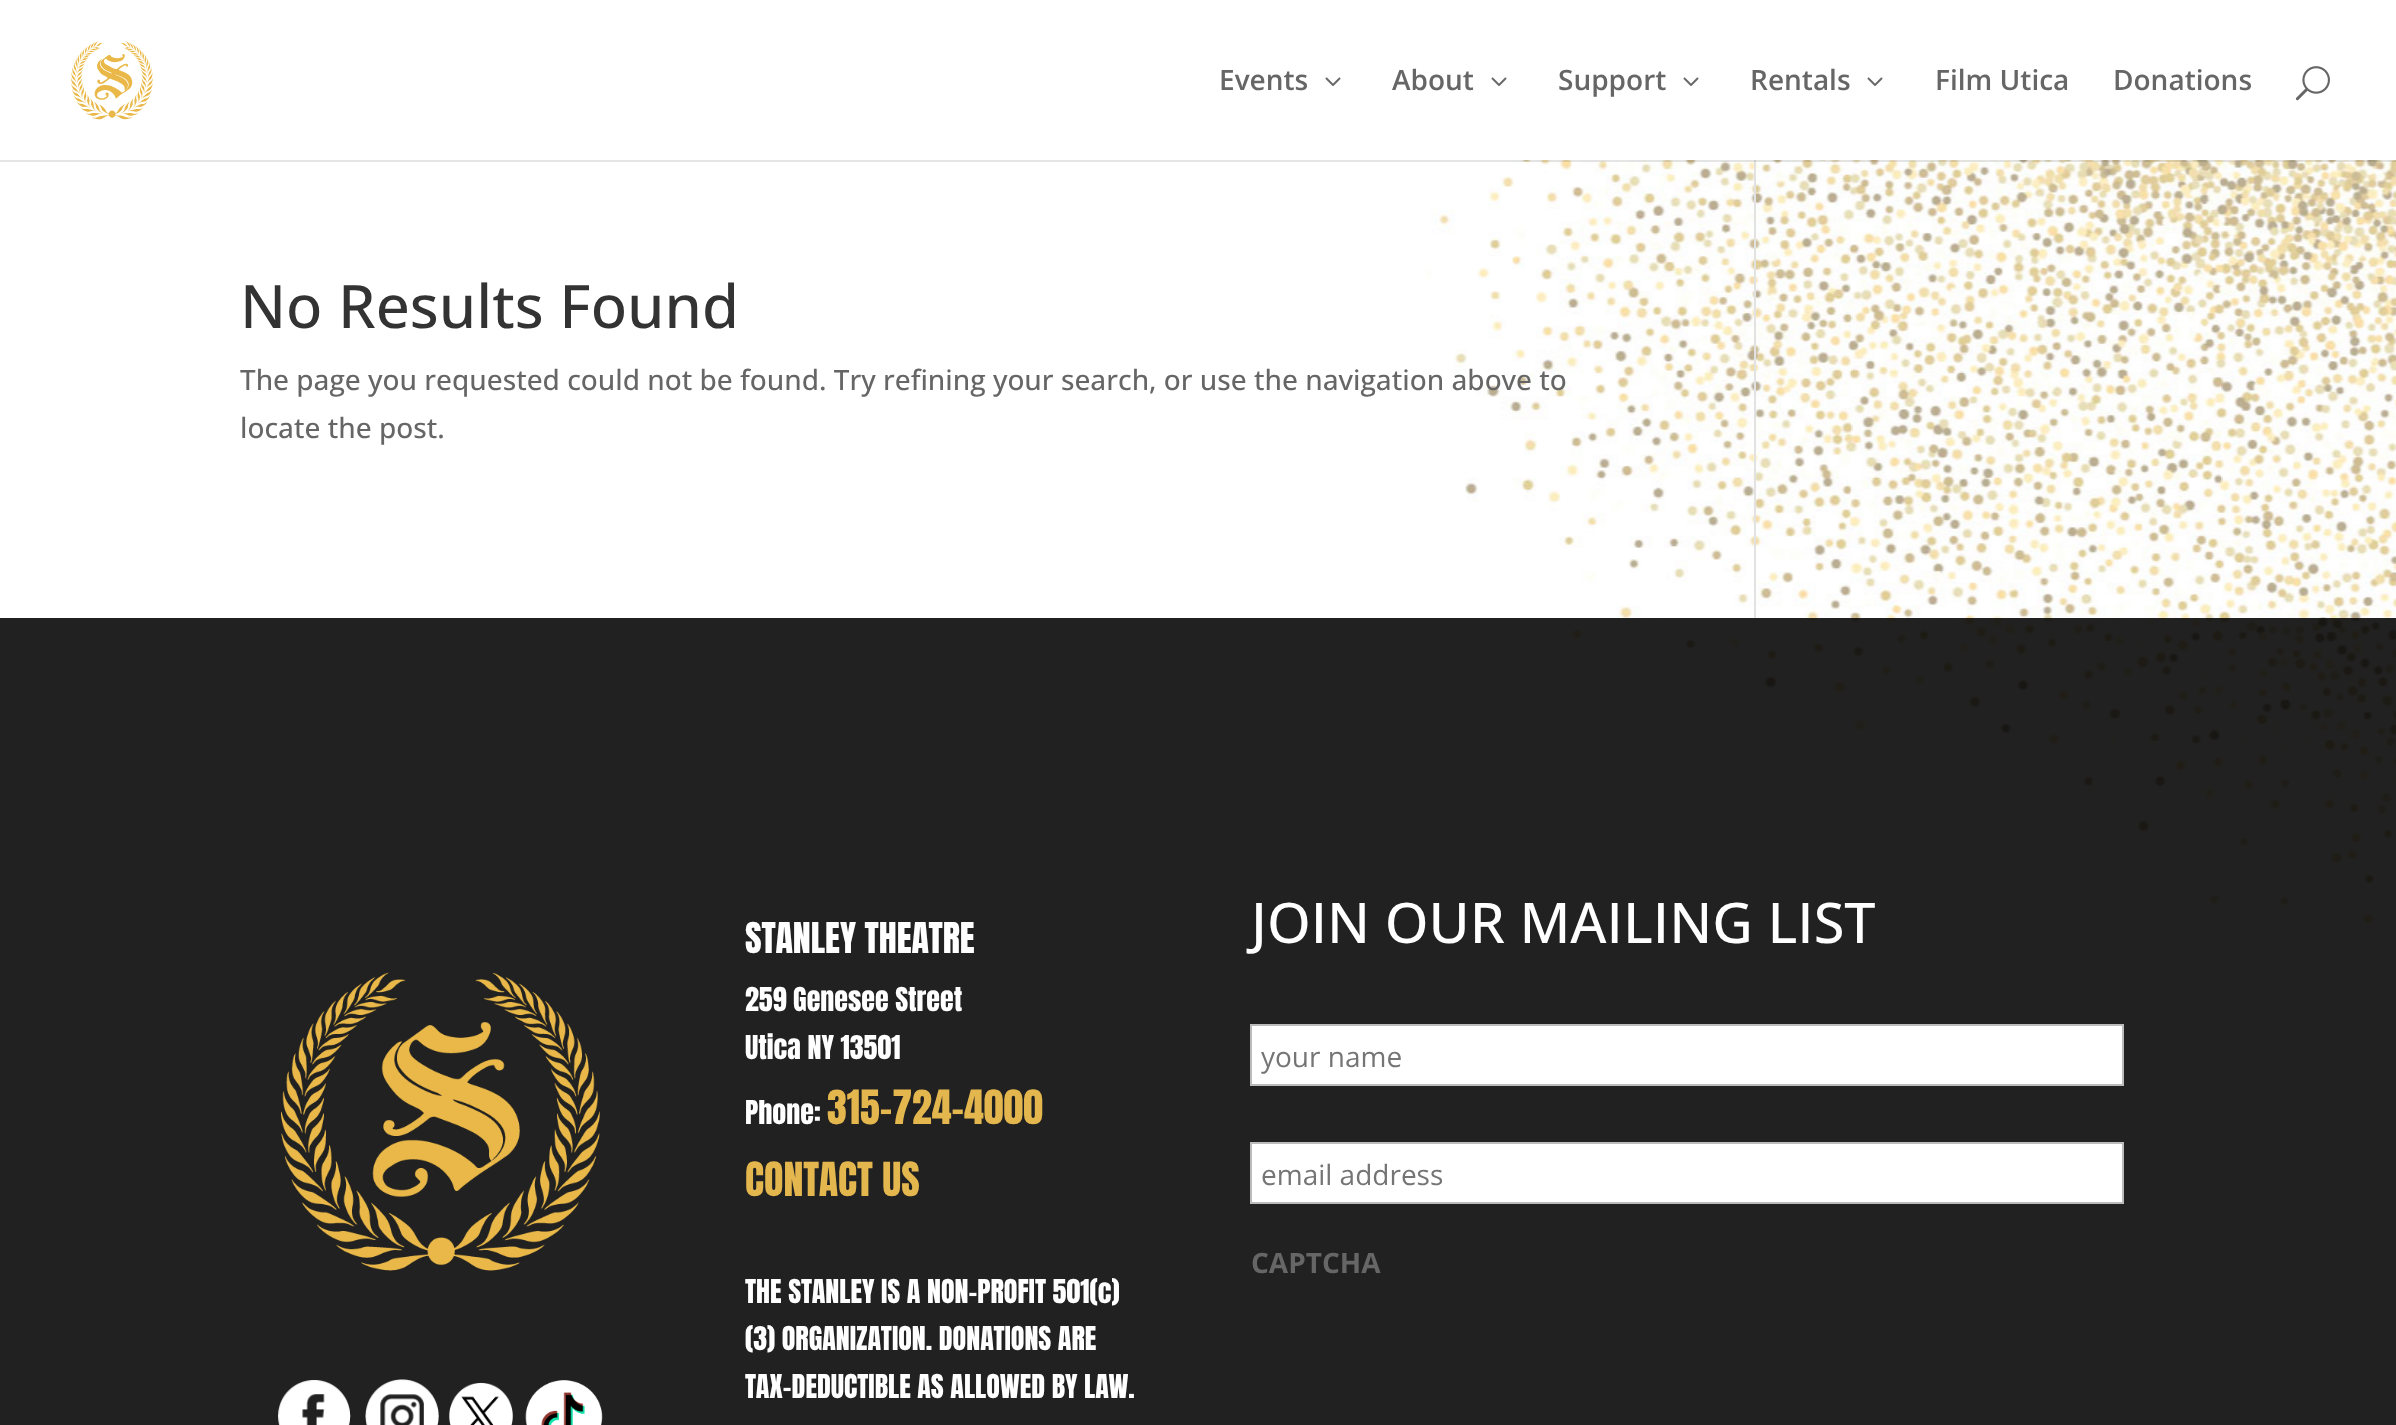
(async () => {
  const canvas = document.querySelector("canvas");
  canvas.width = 2396;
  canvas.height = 1425;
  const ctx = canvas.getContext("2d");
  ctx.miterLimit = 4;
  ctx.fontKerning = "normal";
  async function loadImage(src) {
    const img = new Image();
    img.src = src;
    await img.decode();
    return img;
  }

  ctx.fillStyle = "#ffffff";
  ctx.fillRect(0, 0, 2396, 1425);
  ctx.drawImage(await loadImage("img/1.png"), 1425, 160, 971, 769);
  ctx.fillStyle = "#e2e2e2";
  ctx.fillRect(1754, 160, 2, 458);
  ctx.fillStyle = "rgba(0, 0, 0, 0.1)";
  ctx.fillRect(0, 160, 2396, 2);
  ctx.drawImage(await loadImage("img/2.png"), 71, 41, 82, 79);
  ctx.drawImage(await loadImage("img/3.png"), 1325, 77, 16, 9);
  ctx.drawImage(await loadImage("img/3.png"), 1491, 77, 16, 9);
  ctx.drawImage(await loadImage("img/3.png"), 1683, 77, 16, 9);
  ctx.drawImage(await loadImage("img/3.png"), 1867, 77, 16, 9);
  ctx.drawImage(await loadImage("img/4.png"), 2295, 66, 35, 35);
  ctx.fillStyle = "rgba(0, 0, 0, 0.87)";
  ctx.fillRect(0, 618, 2396, 807);
  ctx.drawImage(await loadImage("img/5.png"), 281, 972, 319, 299);
  ctx.drawImage(await loadImage("img/6.png"), 278, 1380, 73, 45);
  ctx.drawImage(await loadImage("img/7.png"), 365, 1379, 74, 46);
  ctx.drawImage(await loadImage("img/8.png"), 449, 1382, 64, 43);
  ctx.drawImage(await loadImage("img/9.png"), 525, 1380, 78, 45);
  ctx.fillStyle = "#ffffff";
  ctx.beginPath();
  ctx.rect(1251, 1025, 872, 60);
  ctx.fill();
  ctx.strokeStyle = "#bbbbbb";
  ctx.lineWidth = 2;
  ctx.stroke();
  ctx.beginPath();
  ctx.rect(1251, 1143, 872, 60);
  ctx.fill();
  ctx.stroke();
  ctx.font = "600 28px Open Sans";
  ctx.fillStyle = "#666666";
  for (const [text, x, y] of [
    ["Events", 1219, 90],
    ["About", 1392, 90],
    ["Support", 1558, 90],
    ["Rentals", 1750, 90],
    ["Film Utica", 1935, 90],
    ["Donations", 2113, 90],
  ]) {
    ctx.fillText(text, x, y);
  }
  ctx.font = "500 60px Open Sans";
  ctx.fillStyle = "#333333";
  ctx.fillText("No Results Found", 240, 328);
  ctx.font = "500 28px Open Sans";
  ctx.fillStyle = "#666666";
  ctx.fillText("The page you requested could not be found. Try refining your search, or use the navigation above to", 240, 390);
  ctx.fillText("locate the post.", 240, 438);
  ctx.font = "36px Anton";
  ctx.fillStyle = "#ffffff";
  ctx.fillText("STANLEY THEATRE", 745, 953);
  ctx.font = "28px Anton";
  for (const [text, x, y] of [
    ["259 Genesee Street", 745, 1011],
    ["Utica NY 13501", 745, 1059],
    ["Phone:", 745, 1124],
  ]) {
    ctx.fillText(text, x, y);
  }
  ctx.font = "40px Anton";
  ctx.fillStyle = "#e4b64e";
  ctx.fillText("315-724-4000", 827, 1124);
  ctx.fillText("CONTACT US", 745, 1196);
  ctx.font = "28px Anton";
  ctx.fillStyle = "#ffffff";
  for (const [text, x, y] of [
    ["THE STANLEY IS A NON-PROFIT 501(c)", 745, 1303],
    ["(3) ORGANIZATION. DONATIONS ARE", 745, 1350],
    ["TAX-DEDUCTIBLE AS ALLOWED BY LAW.", 745, 1398],
  ]) {
    ctx.fillText(text, x, y);
  }
  ctx.font = "500 56px Open Sans";
  ctx.fillText("JOIN OUR MAILING LIST", 1251, 943);
  ctx.font = "28px Open Sans";
  ctx.fillStyle = "#757575";
  ctx.fillText("your name", 1261, 1067);
  ctx.fillText("email address", 1261, 1185);
  ctx.font = "bold 28px Open Sans";
  ctx.fillStyle = "#666666";
  ctx.fillText("CAPTCHA", 1251, 1273);
})();
